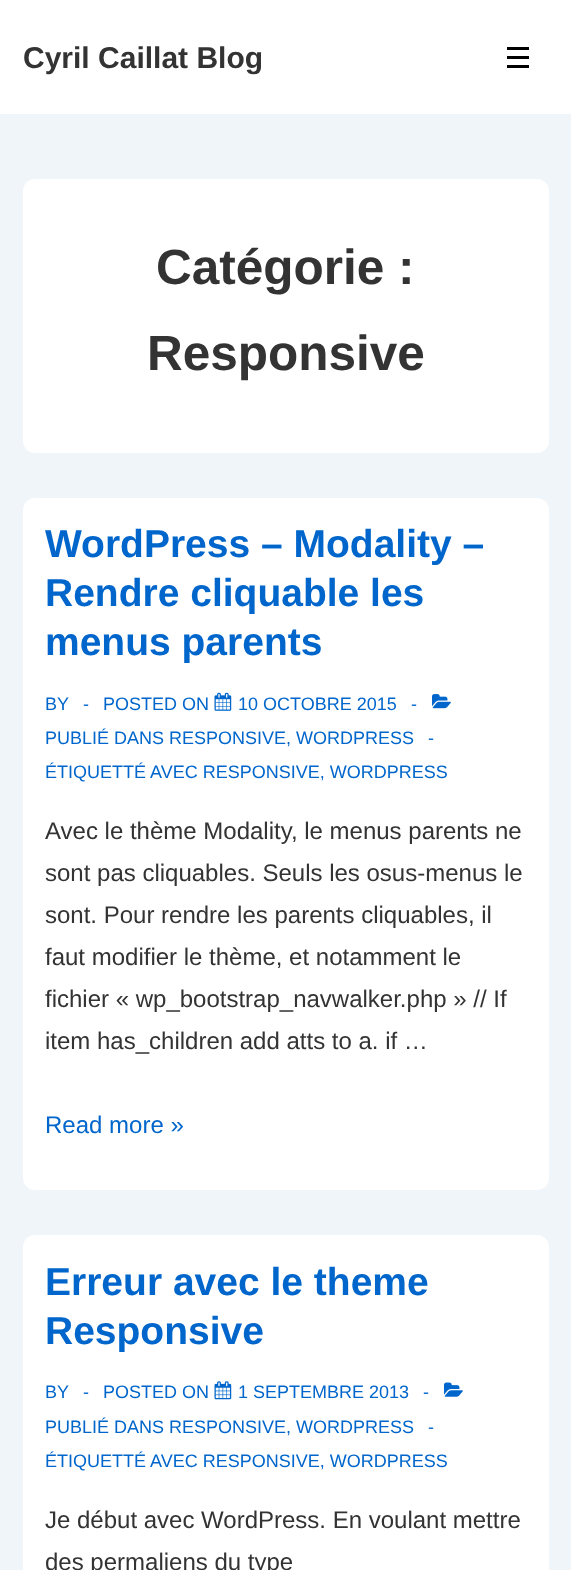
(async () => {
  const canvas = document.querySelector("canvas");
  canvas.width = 571;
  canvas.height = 1570;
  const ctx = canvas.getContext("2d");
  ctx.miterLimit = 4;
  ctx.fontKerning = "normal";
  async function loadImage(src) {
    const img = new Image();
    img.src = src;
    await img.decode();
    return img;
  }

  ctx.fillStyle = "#f0f5fa";
  ctx.fillRect(0, 0, 571, 1570);
  for (const [x, y, w, h, color] of [
    [0, 0, 571, 114, "#ffffff"],
    [507, 47, 22, 3, "#000000"],
    [507, 56, 22, 3, "#000000"],
    [507, 65, 22, 3, "#000000"],
  ]) {
    ctx.fillStyle = color;
    ctx.fillRect(x, y, w, h);
  }
  ctx.fillStyle = "#ffffff";
  ctx.beginPath();
  ctx.roundRect(23, 179, 526, 274, 12);
  ctx.fill();
  ctx.beginPath();
  ctx.roundRect(23, 498, 526, 692, 12);
  ctx.fill();
  ctx.drawImage(await loadImage("img/1.png"), 214, 692, 18, 19);
  ctx.drawImage(await loadImage("img/2.png"), 432, 694, 19, 15);
  ctx.beginPath();
  ctx.roundRect(23, 1235, 526, 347, 12);
  ctx.fill();
  ctx.drawImage(await loadImage("img/3.png"), 214, 1381, 18, 19);
  ctx.drawImage(await loadImage("img/4.png"), 444, 1382, 19, 15);
  ctx.font = "bold 30px Liberation Sans";
  ctx.fillStyle = "#333333";
  ctx.fillText("Cyril Caillat Blog", 23, 68);
  ctx.font = "bold 49.5px Liberation Sans";
  ctx.fillText("Catégorie :", 156, 284);
  ctx.fillText("Responsive", 147, 370);
  ctx.font = "bold 39px Liberation Sans";
  ctx.fillStyle = "#0066cc";
  for (const [text, x, y] of [
    ["WordPress – Modality –", 45, 557],
    ["Rendre cliquable les", 45, 606],
    ["menus parents", 45, 655],
  ]) {
    ctx.fillText(text, x, y);
  }
  ctx.font = "18px Liberation Sans";
  for (const [text, x, y] of [
    ["BY", 45, 710],
    ["-", 83, 710],
    ["POSTED ON", 103, 710],
    ["10 OCTOBRE 2015", 238, 710],
    ["-", 411, 710],
    ["PUBLIÉ DANS RESPONSIVE, WORDPRESS", 45, 744],
    ["-", 428, 744],
    ["ÉTIQUETTÉ AVEC RESPONSIVE, WORDPRESS", 45, 778],
  ]) {
    ctx.fillText(text, x, y);
  }
  ctx.font = "24px Liberation Sans";
  ctx.fillStyle = "#333333";
  for (const [text, x, y] of [
    ["Avec le thème Modality, le menus parents ne", 45, 839],
    ["sont pas cliquables. Seuls les osus-menus le", 45, 881],
    ["sont. Pour rendre les parents cliquables, il", 45, 923],
    ["faut modifier le thème, et notamment le", 45, 965],
    ["fichier « wp_bootstrap_navwalker.php » // If", 45, 1007],
    ["item has_children add atts to a. if …", 45, 1049],
  ]) {
    ctx.fillText(text, x, y);
  }
  ctx.fillStyle = "#0066cc";
  ctx.fillText("Read more »", 45, 1133);
  ctx.font = "bold 39px Liberation Sans";
  ctx.fillText("Erreur avec le theme", 45, 1295);
  ctx.fillText("Responsive", 45, 1344);
  ctx.font = "18px Liberation Sans";
  for (const [text, x, y] of [
    ["BY", 45, 1398],
    ["-", 83, 1398],
    ["POSTED ON", 103, 1398],
    ["1 SEPTEMBRE 2013", 238, 1398],
    ["-", 423, 1398],
    ["PUBLIÉ DANS RESPONSIVE, WORDPRESS", 45, 1433],
    ["-", 428, 1433],
    ["ÉTIQUETTÉ AVEC RESPONSIVE, WORDPRESS", 45, 1467],
  ]) {
    ctx.fillText(text, x, y);
  }
  ctx.font = "24px Liberation Sans";
  ctx.fillStyle = "#333333";
  ctx.fillText("Je début avec WordPress. En voulant mettre", 45, 1528);
  ctx.fillText("des permaliens du type", 45, 1570);
})();
